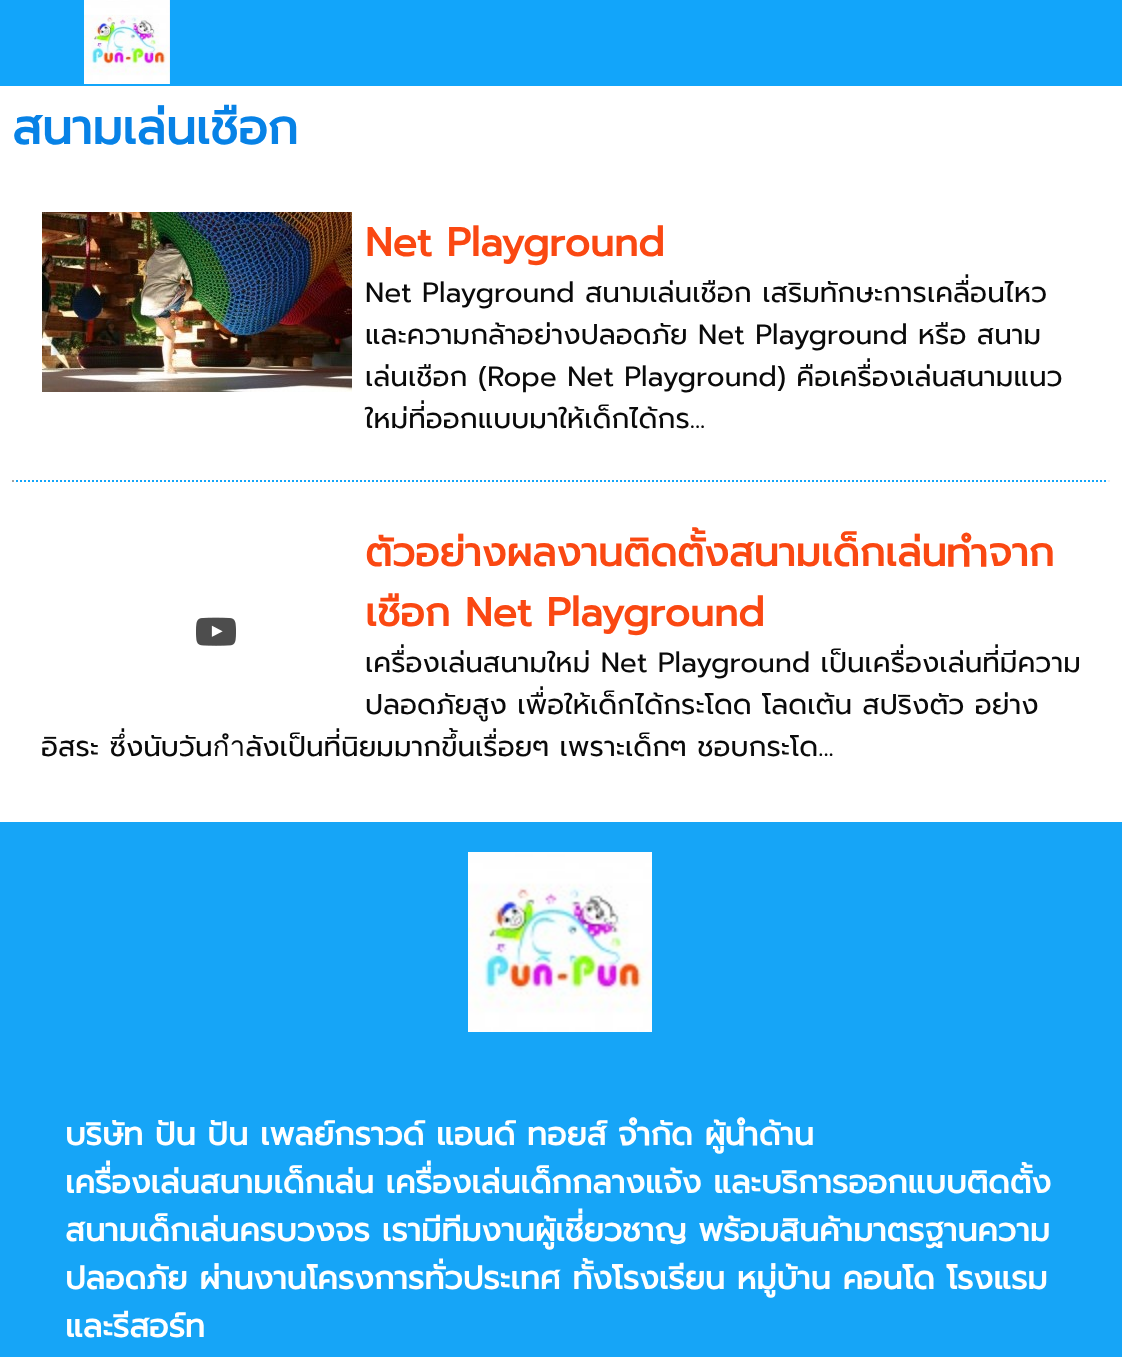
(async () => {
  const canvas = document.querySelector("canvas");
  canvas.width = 1122;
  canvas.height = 1357;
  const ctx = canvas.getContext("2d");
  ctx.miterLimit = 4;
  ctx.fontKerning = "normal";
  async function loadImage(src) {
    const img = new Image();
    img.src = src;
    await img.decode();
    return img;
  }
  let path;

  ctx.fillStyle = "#ffffff";
  ctx.fillRect(0, 0, 1122, 1357);
  ctx.fillStyle = "#12a5fa";
  ctx.fillRect(0, 0, 1122, 86);
  ctx.drawImage(await loadImage("img/1.png"), 84, 0, 86, 84);
  ctx.drawImage(await loadImage("img/2.png"), 42, 212, 310, 180);
  path = new Path2D("M12 481H1110");
  ctx.strokeStyle = "#12a5fa";
  ctx.lineWidth = 2;
  ctx.setLineDash([2, 2]);
  ctx.stroke(path);
  ctx.fillStyle = "#eeeeee";
  ctx.fillRect(1108, 480, 2, 2);
  ctx.fillStyle = "#9f9f9f";
  ctx.fillRect(12, 480, 2, 2);
  ctx.drawImage(await loadImage("img/3.png"), 196, 617, 40, 29);
  ctx.fillStyle = "#16a5f7";
  ctx.fillRect(0, 822, 1122, 535);
  ctx.drawImage(await loadImage("img/4.png"), 468, 852, 184, 180);
  ctx.font = "bold 48px Prompt";
  ctx.fillStyle = "#0782e6";
  ctx.fillText("สนามเล่นเชือก", 12, 144);
  ctx.font = "bold 40px Prompt";
  ctx.fillStyle = "#fa4812";
  ctx.fillText("Net Playground", 365, 256);
  ctx.font = "28px Prompt";
  ctx.fillStyle = "#0a0a0a";
  for (const [text, x, y] of [
    ["Net Playground สนามเล่นเชือก เสริมทักษะการเคลื่อนไหว", 365, 302],
    ["และความกล้าอย่างปลอดภัย Net Playground หรือ สนาม", 365, 344],
    ["เล่นเชือก (Rope Net Playground) คือเครื่องเล่นสนามแนว", 365, 386],
    ["ใหม่ที่ออกแบบมาให้เด็กได้กร...", 365, 428],
  ]) {
    ctx.fillText(text, x, y);
  }
  ctx.font = "bold 40px Prompt";
  ctx.fillStyle = "#fa4812";
  ctx.fillText("ตัวอย่างผลงานติดตั้งสนามเด็กเล่นทำจาก", 365, 566);
  ctx.fillText("เชือก Net Playground", 365, 626);
  ctx.font = "28px Prompt";
  ctx.fillStyle = "#0a0a0a";
  for (const [text, x, y] of [
    ["เครื่องเล่นสนามใหม่ Net Playground เป็นเครื่องเล่นที่มีความ", 365, 672],
    ["ปลอดภัยสูง เพื่อให้เด็กได้กระโดด โลดเต้น สปริงตัว อย่าง", 365, 714],
    ["อิสระ ซึ่งนับวันกำลังเป็นที่นิยมมากขึ้นเรื่อยๆ เพราะเด็กๆ ชอบกระโด...", 41, 756],
  ]) {
    ctx.fillText(text, x, y);
  }
  ctx.font = "bold 32px Prompt";
  ctx.fillStyle = "#ffffff";
  for (const [text, x, y] of [
    ["บริษัท ปัน ปัน เพลย์กราวด์ แอนด์ ทอยส์ จำกัด ผู้นำด้าน", 65, 1145],
    ["เครื่องเล่นสนามเด็กเล่น เครื่องเล่นเด็กกลางแจ้ง และบริการออกแบบติดตั้ง", 65, 1193],
    ["สนามเด็กเล่นครบวงจร เรามีทีมงานผู้เชี่ยวชาญ พร้อมสินค้ามาตรฐานความ", 65, 1241],
    ["ปลอดภัย ผ่านงานโครงการทั่วประเทศ ทั้งโรงเรียน หมู่บ้าน คอนโด โรงแรม", 65, 1289],
    ["และรีสอร์ท", 65, 1337],
  ]) {
    ctx.fillText(text, x, y);
  }
})();
